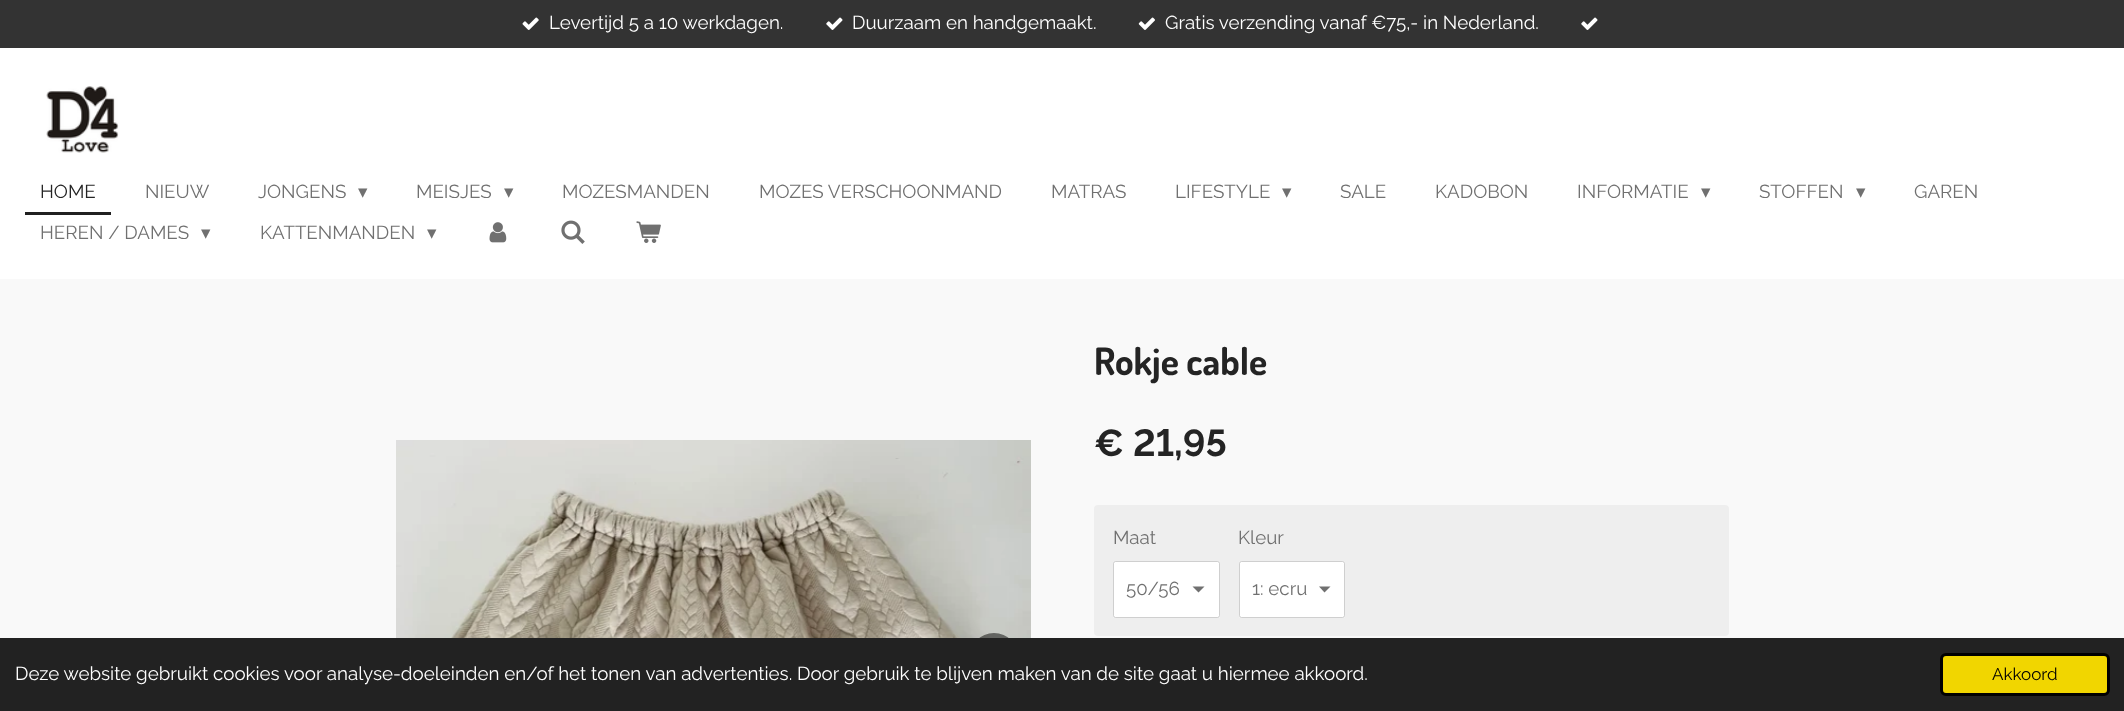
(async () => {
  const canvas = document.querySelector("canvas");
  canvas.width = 2124;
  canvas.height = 711;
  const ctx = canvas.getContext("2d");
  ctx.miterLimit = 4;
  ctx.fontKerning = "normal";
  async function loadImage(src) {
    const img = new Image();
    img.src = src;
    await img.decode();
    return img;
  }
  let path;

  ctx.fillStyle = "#ffffff";
  ctx.fillRect(0, 0, 2124, 711);
  ctx.fillStyle = "#333333";
  ctx.fillRect(0, 0, 2124, 48);
  ctx.drawImage(await loadImage("img/1.png"), 522, 17, 17, 13);
  ctx.drawImage(await loadImage("img/2.png"), 826, 17, 17, 13);
  ctx.drawImage(await loadImage("img/3.png"), 1138, 17, 17, 13);
  ctx.drawImage(await loadImage("img/2.png"), 1581, 17, 17, 13);
  ctx.drawImage(await loadImage("img/4.png"), 46, 86, 73, 67);
  ctx.fillStyle = "#202020";
  ctx.fillRect(25, 212, 86, 3);
  ctx.drawImage(await loadImage("img/5.png"), 489, 222, 18, 21);
  ctx.drawImage(await loadImage("img/6.png"), 561, 220, 24, 24);
  ctx.drawImage(await loadImage("img/7.png"), 636, 221, 25, 22);
  ctx.fillStyle = "#f9f9f9";
  ctx.fillRect(0, 279, 2124, 359);
  ctx.drawImage(await loadImage("img/8.png"), 396, 440, 635, 198);
  ctx.fillStyle = "rgba(0, 0, 0, 0.5)";
  ctx.beginPath();
  ctx.arc(994, 658, 25, 0, Math.PI * 2);
  ctx.fill();
  ctx.fillStyle = "#eeeeee";
  ctx.beginPath();
  ctx.roundRect(1094, 505, 635, 131, 4);
  ctx.fill();
  ctx.fillStyle = "#ffffff";
  ctx.beginPath();
  ctx.roundRect(1113, 561, 107, 57, 2.5);
  ctx.fill();
  ctx.fillStyle = "#707070";
  path = new Path2D("M1198.5 592.5L1192.5 586.5H1204.5Z");
  ctx.fill(path);
  ctx.beginPath();
  ctx.roundRect(1113.5, 561.5, 106, 56, 2);
  ctx.strokeStyle = "rgba(160, 160, 160, 0.5)";
  ctx.stroke();
  ctx.fillStyle = "#ffffff";
  ctx.beginPath();
  ctx.roundRect(1239, 561, 106, 57, 2.5);
  ctx.fill();
  ctx.fillStyle = "#707070";
  path = new Path2D("M1324.5 592.5L1319 586.5H1330.5Z");
  ctx.fill(path);
  ctx.beginPath();
  ctx.roundRect(1239.5, 561.5, 105, 56, 2);
  ctx.stroke();
  ctx.fillStyle = "#222222";
  ctx.fillRect(0, 638, 2124, 73);
  ctx.fillStyle = "#f1d600";
  ctx.beginPath();
  ctx.roundRect(1941.5, 654.5, 167, 40, 4.5);
  ctx.fill();
  ctx.strokeStyle = "#000000";
  ctx.lineWidth = 3;
  ctx.stroke();
  ctx.font = "18.75px Raleway";
  ctx.fillStyle = "#ffffff";
  for (const [text, x, y] of [
    ["Levertijd 5 a 10 werkdagen.", 549, 29],
    ["Duurzaam en handgemaakt.", 852, 29],
    ["Gratis verzending vanaf €75,- in Nederland.", 1165, 29],
  ]) {
    ctx.fillText(text, x, y);
  }
  ctx.fillStyle = "#242424";
  ctx.fillText("HOME", 40, 198);
  ctx.fillStyle = "#707070";
  ctx.fillText("NIEUW", 145, 198);
  ctx.fillText("JONGENS", 258, 198);
  ctx.font = "18.75px DejaVu Sans";
  ctx.fillText("▾", 358, 198);
  ctx.font = "18.75px Raleway";
  ctx.fillText("MEISJES", 416, 198);
  ctx.font = "18.75px DejaVu Sans";
  ctx.fillText("▾", 504, 198);
  ctx.font = "18.75px Raleway";
  for (const [text, x, y] of [
    ["MOZESMANDEN", 562, 198],
    ["MOZES VERSCHOONMAND", 759, 198],
    ["MATRAS", 1051, 198],
    ["LIFESTYLE", 1175, 198],
  ]) {
    ctx.fillText(text, x, y);
  }
  ctx.font = "18.75px DejaVu Sans";
  ctx.fillText("▾", 1282, 198);
  ctx.font = "18.75px Raleway";
  for (const [text, x, y] of [
    ["SALE", 1340, 198],
    ["KADOBON", 1435, 198],
    ["INFORMATIE", 1577, 198],
  ]) {
    ctx.fillText(text, x, y);
  }
  ctx.font = "18.75px DejaVu Sans";
  ctx.fillText("▾", 1701, 198);
  ctx.font = "18.75px Raleway";
  ctx.fillText("STOFFEN", 1759, 198);
  ctx.font = "18.75px DejaVu Sans";
  ctx.fillText("▾", 1856, 198);
  ctx.font = "18.75px Raleway";
  ctx.fillText("GAREN", 1914, 198);
  ctx.fillText("HEREN / DAMES", 40, 239);
  ctx.font = "18.75px DejaVu Sans";
  ctx.fillText("▾", 201, 239);
  ctx.font = "18.75px Raleway";
  ctx.fillText("KATTENMANDEN", 260, 239);
  ctx.font = "18.75px DejaVu Sans";
  ctx.fillText("▾", 427, 239);
  ctx.font = "bold 37.5px Dosis";
  ctx.fillStyle = "#242424";
  ctx.fillText("Rokje cable", 1094, 375);
  ctx.font = "bold 37.5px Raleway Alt";
  ctx.fillText("€ 21,95", 1094, 456);
  ctx.font = "18.75px Raleway";
  ctx.fillStyle = "#707070";
  for (const [text, x, y] of [
    ["Maat", 1113, 544],
    ["50/56", 1126, 595],
    ["Kleur", 1238, 544],
    ["1: ecru", 1252, 595],
  ]) {
    ctx.fillText(text, x, y);
  }
  ctx.fillStyle = "#ffffff";
  ctx.fillText("Deze website gebruikt cookies voor analyse-doeleinden en/of het tonen van advertenties. Door gebruik te blijven maken van de site gaat u hiermee akkoord.", 15, 680);
  ctx.font = "17px Raleway";
  ctx.fillStyle = "#000000";
  ctx.fillText("Akkoord", 1992, 680);
})();
